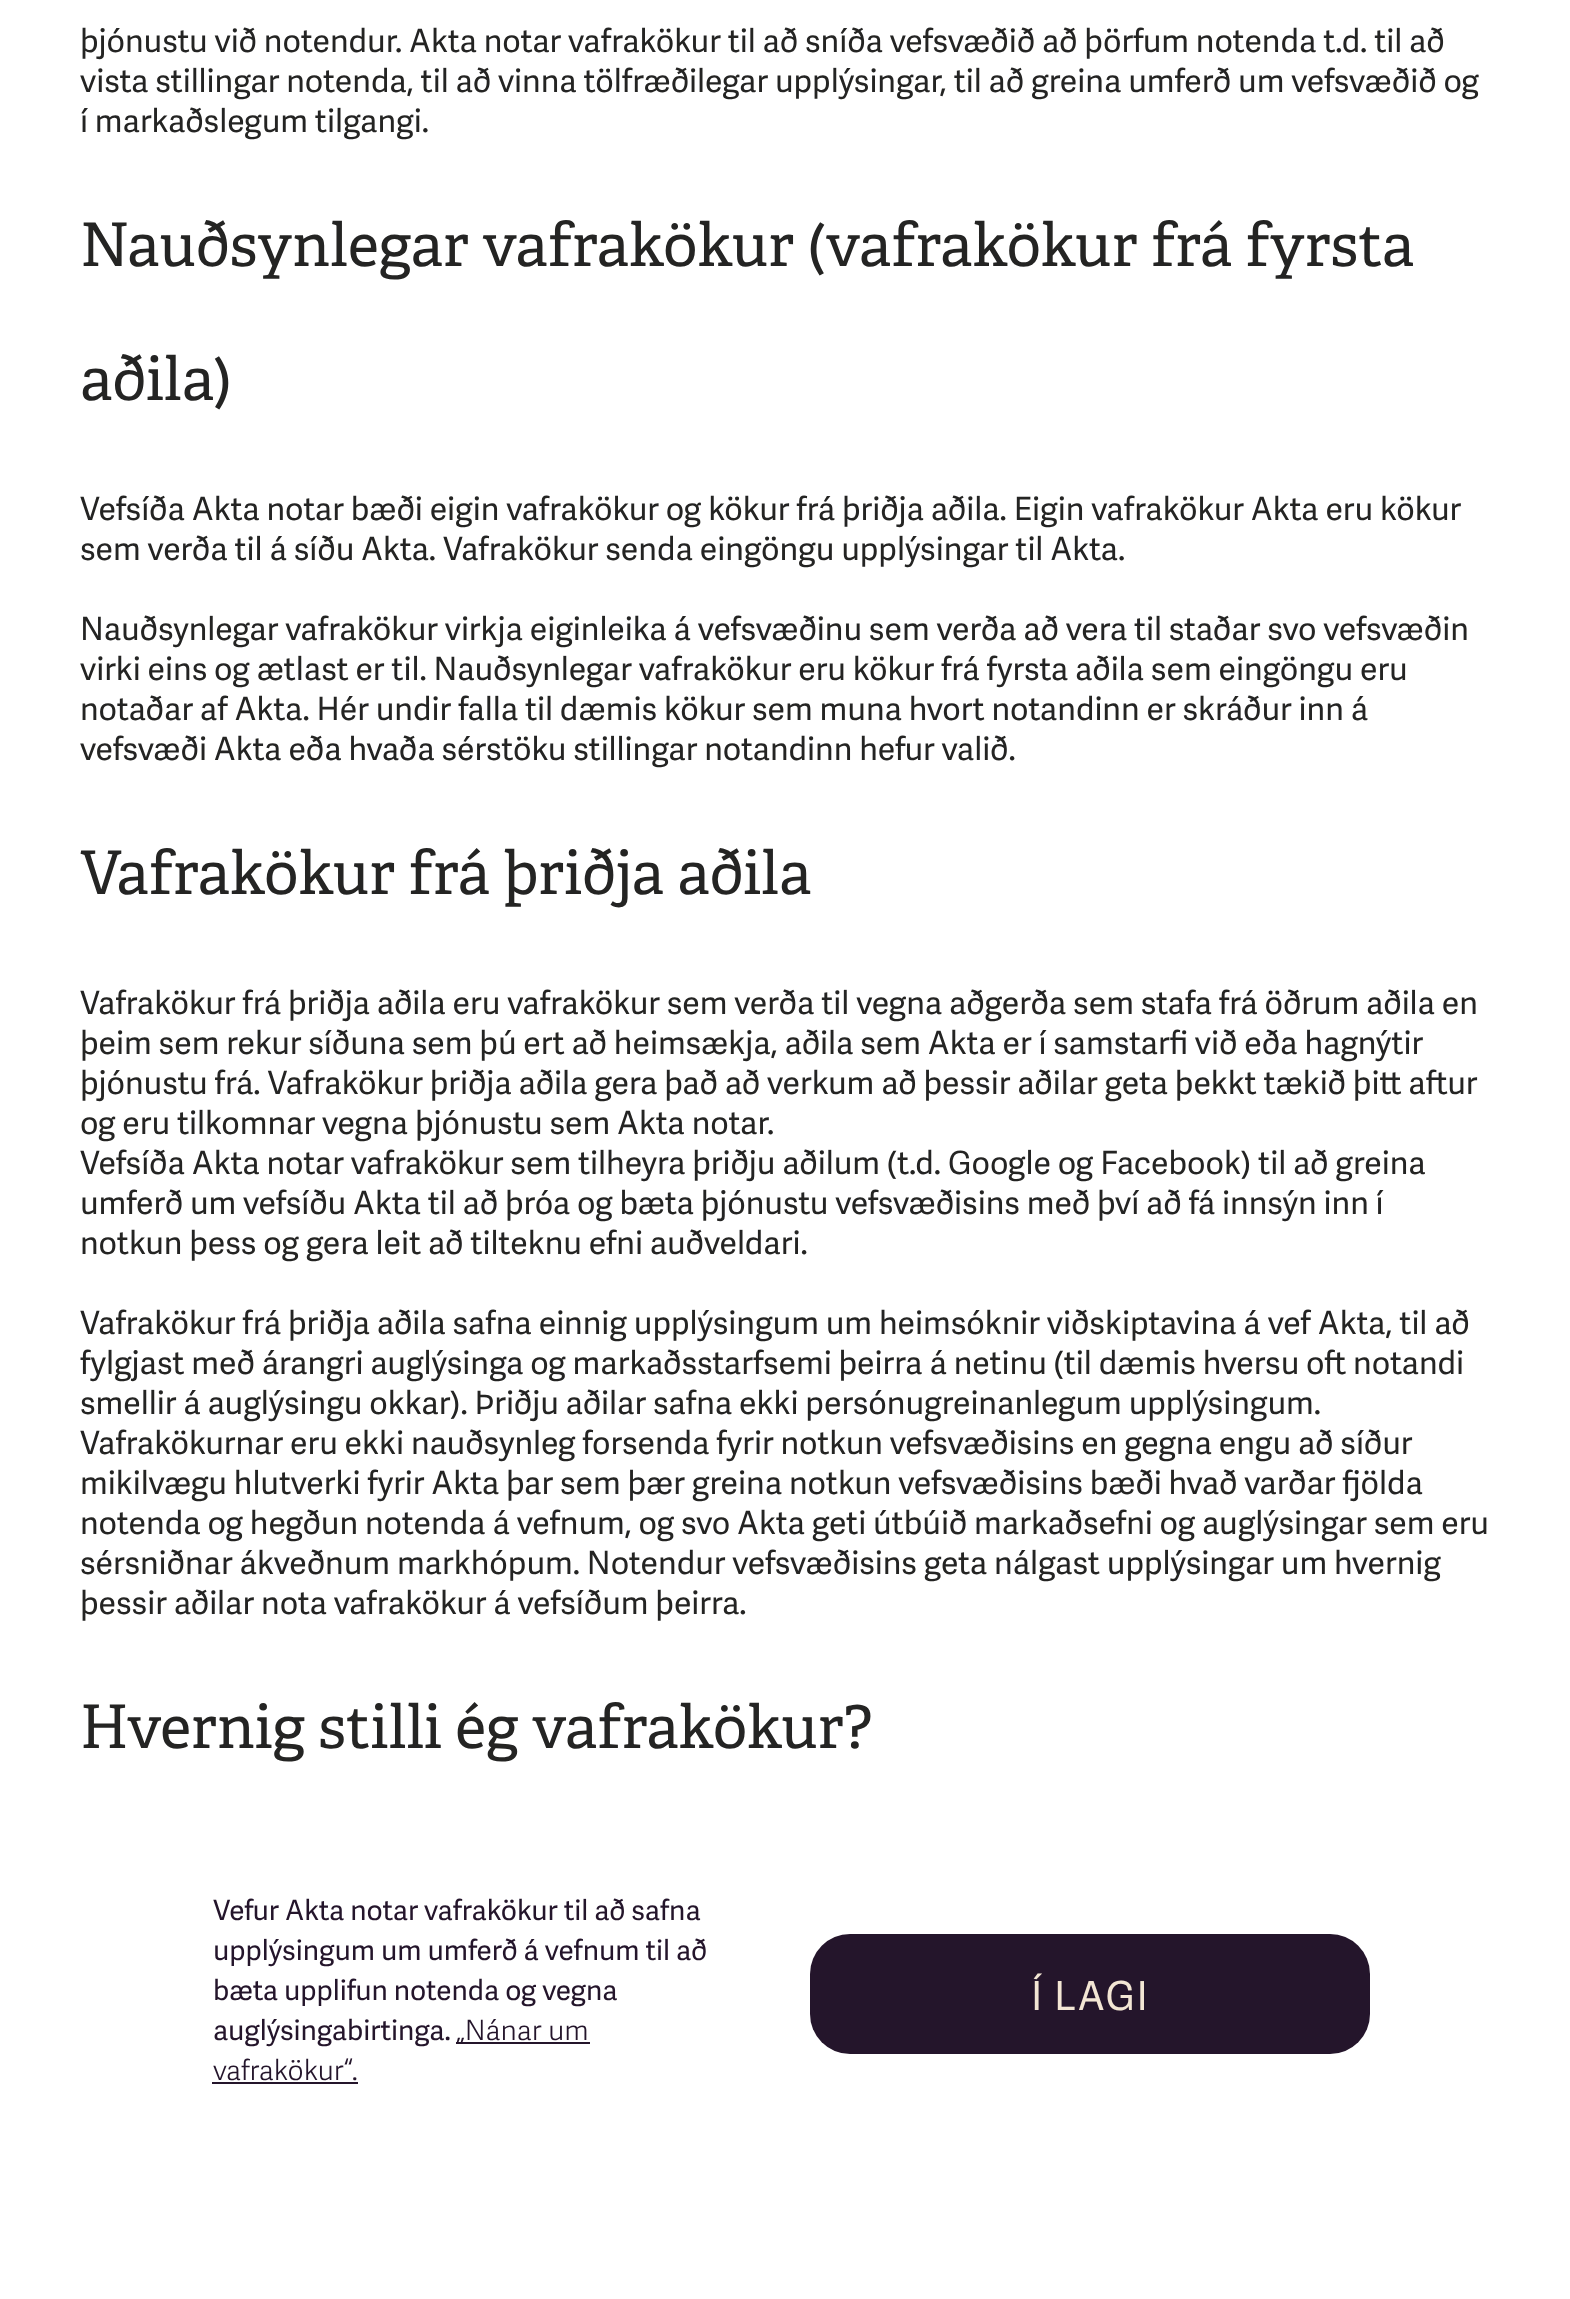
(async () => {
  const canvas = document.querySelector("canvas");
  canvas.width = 1570;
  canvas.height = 2299;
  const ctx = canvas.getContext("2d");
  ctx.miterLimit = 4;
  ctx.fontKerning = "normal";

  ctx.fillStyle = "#ffffff";
  ctx.fillRect(0, 0, 1570, 2299);
  ctx.fillStyle = "#24152b";
  ctx.fillRect(456, 2042, 134, 2);
  ctx.fillRect(212, 2082, 146, 2);
  ctx.beginPath();
  ctx.roundRect(810, 1934, 560, 120, 40);
  ctx.fill();
  ctx.font = "32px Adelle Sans";
  ctx.fillStyle = "#242423";
  for (const [text, x, y] of [
    ["þjónustu við notendur. Akta notar vafrakökur til að sníða vefsvæðið að þörfum notenda t.d. til að", 80, 52],
    ["vista stillingar notenda, til að vinna tölfræðilegar upplýsingar, til að greina umferð um vefsvæðið og", 80, 92],
    ["í markaðslegum tilgangi.", 80, 132],
  ]) {
    ctx.fillText(text, x, y);
  }
  ctx.font = "60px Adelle";
  ctx.fillText("Nauðsynlegar vafrakökur (vafrakökur frá fyrsta", 80, 266);
  ctx.fillText("aðila)", 80, 400);
  ctx.font = "32px Adelle Sans";
  for (const [text, x, y] of [
    ["Vefsíða Akta notar bæði eigin vafrakökur og kökur frá þriðja aðila. Eigin vafrakökur Akta eru kökur", 80, 520],
    ["sem verða til á síðu Akta. Vafrakökur senda eingöngu upplýsingar til Akta.", 80, 560],
    ["Nauðsynlegar vafrakökur virkja eiginleika á vefsvæðinu sem verða að vera til staðar svo vefsvæðin", 80, 640],
    ["virki eins og ætlast er til. Nauðsynlegar vafrakökur eru kökur frá fyrsta aðila sem eingöngu eru", 80, 680],
    ["notaðar af Akta. Hér undir falla til dæmis kökur sem muna hvort notandinn er skráður inn á", 80, 720],
    ["vefsvæði Akta eða hvaða sérstöku stillingar notandinn hefur valið.", 80, 760],
  ]) {
    ctx.fillText(text, x, y);
  }
  ctx.font = "60px Adelle";
  ctx.fillText("Vafrakökur frá þriðja aðila", 80, 894);
  ctx.font = "32px Adelle Sans";
  for (const [text, x, y] of [
    ["Vafrakökur frá þriðja aðila eru vafrakökur sem verða til vegna aðgerða sem stafa frá öðrum aðila en", 80, 1014],
    ["þeim sem rekur síðuna sem þú ert að heimsækja, aðila sem Akta er í samstarfi við eða hagnýtir", 80, 1054],
    ["þjónustu frá. Vafrakökur þriðja aðila gera það að verkum að þessir aðilar geta þekkt tækið þitt aftur", 80, 1094],
    ["og eru tilkomnar vegna þjónustu sem Akta notar.", 80, 1134],
    ["Vefsíða Akta notar vafrakökur sem tilheyra þriðju aðilum (t.d. Google og Facebook) til að greina", 80, 1174],
    ["umferð um vefsíðu Akta til að þróa og bæta þjónustu vefsvæðisins með því að fá innsýn inn í", 80, 1214],
    ["notkun þess og gera leit að tilteknu efni auðveldari.", 80, 1254],
    ["Vafrakökur frá þriðja aðila safna einnig upplýsingum um heimsóknir viðskiptavina á vef Akta, til að", 80, 1334],
    ["fylgjast með árangri auglýsinga og markaðsstarfsemi þeirra á netinu (til dæmis hversu oft notandi", 80, 1374],
    ["smellir á auglýsingu okkar). Þriðju aðilar safna ekki persónugreinanlegum upplýsingum.", 80, 1414],
    ["Vafrakökurnar eru ekki nauðsynleg forsenda fyrir notkun vefsvæðisins en gegna engu að síður", 80, 1454],
    ["mikilvægu hlutverki fyrir Akta þar sem þær greina notkun vefsvæðisins bæði hvað varðar fjölda", 80, 1494],
    ["notenda og hegðun notenda á vefnum, og svo Akta geti útbúið markaðsefni og auglýsingar sem eru", 80, 1534],
    ["sérsniðnar ákveðnum markhópum. Notendur vefsvæðisins geta nálgast upplýsingar um hvernig", 80, 1574],
    ["þessir aðilar nota vafrakökur á vefsíðum þeirra.", 80, 1614],
  ]) {
    ctx.fillText(text, x, y);
  }
  ctx.font = "60px Adelle";
  ctx.fillText("Hvernig stilli ég vafrakökur?", 80, 1748);
  ctx.font = "28px Adelle Sans";
  ctx.fillStyle = "#24152b";
  for (const [text, x, y] of [
    ["Vefur Akta notar vafrakökur til að safna", 213, 1920],
    ["upplýsingum um umferð á vefnum til að", 213, 1960],
    ["bæta upplifun notenda og vegna", 213, 2000],
    ["auglýsingabirtinga.", 213, 2040],
  ]) {
    ctx.fillText(text, x, y);
  }
  ctx.font = "300 28px Adelle Sans";
  ctx.fillText("„Nánar um", 456, 2040);
  ctx.fillText("vafrakökur“.", 213, 2080);
  ctx.letterSpacing = "1.5px";
  ctx.font = "40px Adelle Sans";
  ctx.fillStyle = "#f3e6d4";
  ctx.fillText("Í LAGI", 1031, 2010);
})();
